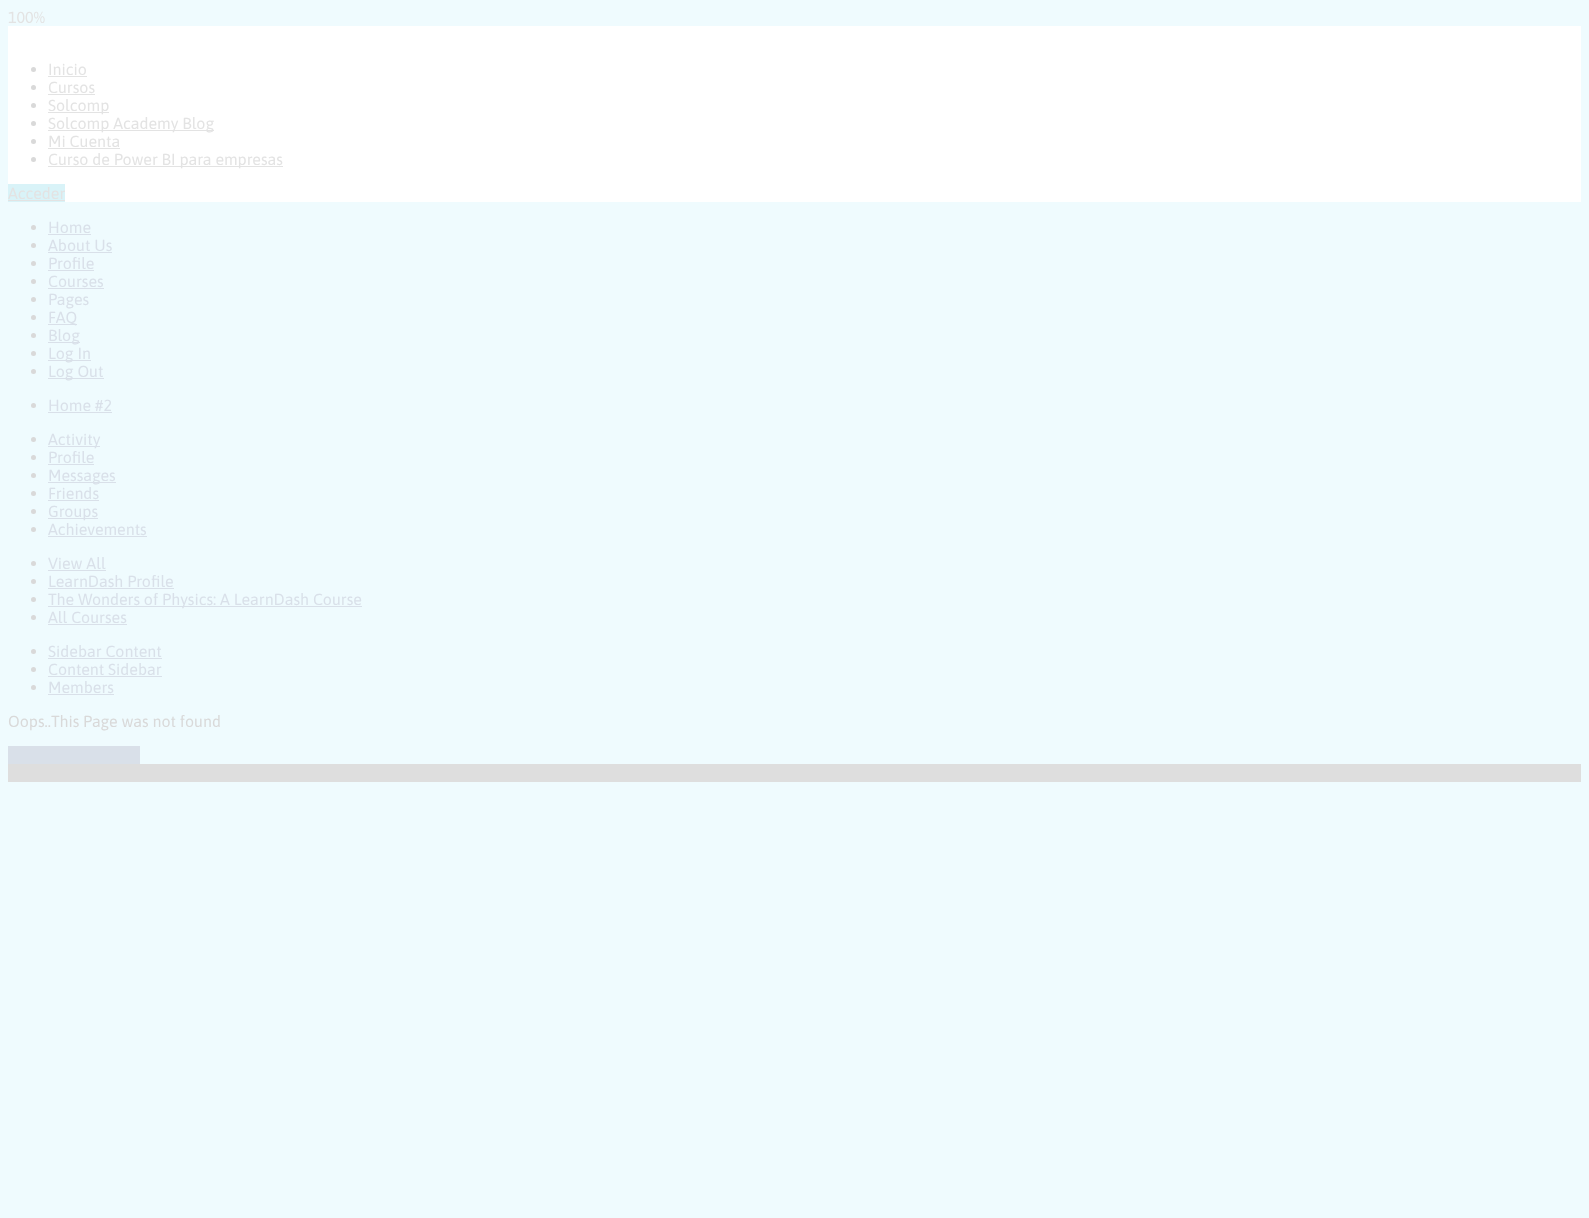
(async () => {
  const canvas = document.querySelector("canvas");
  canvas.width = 1589;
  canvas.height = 1218;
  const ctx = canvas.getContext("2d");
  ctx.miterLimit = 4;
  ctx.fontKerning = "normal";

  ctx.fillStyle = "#effbfe";
  ctx.fillRect(0, 0, 1589, 1218);
  ctx.fillStyle = "#ffffff";
  ctx.fillRect(8, 26, 1573, 176);
  ctx.fillStyle = "#d9d9d9";
  ctx.beginPath();
  ctx.arc(33.5, 69.5, 2.5, 0, Math.PI * 2);
  ctx.fill();
  ctx.fillStyle = "#e3e3e3";
  ctx.fillRect(48, 76, 39, 1);
  ctx.fillStyle = "#d9d9d9";
  ctx.beginPath();
  ctx.arc(33.5, 87.5, 2.5, 0, Math.PI * 2);
  ctx.fill();
  ctx.fillStyle = "#e3e3e3";
  ctx.fillRect(48, 94, 47, 1);
  ctx.fillStyle = "#d9d9d9";
  ctx.beginPath();
  ctx.arc(33.5, 105.5, 2.5, 0, Math.PI * 2);
  ctx.fill();
  ctx.fillStyle = "#e3e3e3";
  ctx.fillRect(48, 112, 61, 1);
  ctx.fillStyle = "#d9d9d9";
  ctx.beginPath();
  ctx.arc(33.5, 123.5, 2.5, 0, Math.PI * 2);
  ctx.fill();
  ctx.fillStyle = "#e3e3e3";
  ctx.fillRect(48, 130, 166, 1);
  ctx.fillStyle = "#d9d9d9";
  ctx.beginPath();
  ctx.arc(33.5, 141.5, 2.5, 0, Math.PI * 2);
  ctx.fill();
  ctx.fillStyle = "#e3e3e3";
  ctx.fillRect(48, 148, 72, 1);
  ctx.fillStyle = "#d9d9d9";
  ctx.beginPath();
  ctx.arc(33.5, 159.5, 2.5, 0, Math.PI * 2);
  ctx.fill();
  for (const [x, y, w, h, color] of [
    [48, 166, 235, 1, "#e3e3e3"],
    [8, 184, 57, 18, "#d9f3f8"],
    [8, 200, 57, 1, "#e3e3e3"],
  ]) {
    ctx.fillStyle = color;
    ctx.fillRect(x, y, w, h);
  }
  ctx.fillStyle = "#d9d9d9";
  ctx.beginPath();
  ctx.arc(33.5, 227.5, 2.5, 0, Math.PI * 2);
  ctx.fill();
  ctx.fillStyle = "#d9e0e9";
  ctx.fillRect(48, 234, 43, 1);
  ctx.fillStyle = "#d9d9d9";
  ctx.beginPath();
  ctx.arc(33.5, 245.5, 2.5, 0, Math.PI * 2);
  ctx.fill();
  ctx.fillStyle = "#d9e0e9";
  ctx.fillRect(48, 252, 64, 1);
  ctx.fillStyle = "#d9d9d9";
  ctx.beginPath();
  ctx.arc(33.5, 263.5, 2.5, 0, Math.PI * 2);
  ctx.fill();
  ctx.fillStyle = "#d9e0e9";
  ctx.fillRect(48, 270, 46, 1);
  ctx.fillStyle = "#d9d9d9";
  ctx.beginPath();
  ctx.arc(33.5, 281.5, 2.5, 0, Math.PI * 2);
  ctx.fill();
  ctx.fillStyle = "#d9e0e9";
  ctx.fillRect(48, 288, 56, 1);
  ctx.fillStyle = "#d9d9d9";
  ctx.beginPath();
  ctx.arc(33.5, 299.5, 2.5, 0, Math.PI * 2);
  ctx.fill();
  ctx.beginPath();
  ctx.arc(33.5, 317.5, 2.5, 0, Math.PI * 2);
  ctx.fill();
  ctx.fillStyle = "#d9e0e9";
  ctx.fillRect(48, 324, 29, 1);
  ctx.fillStyle = "#d9d9d9";
  ctx.beginPath();
  ctx.arc(33.5, 335.5, 2.5, 0, Math.PI * 2);
  ctx.fill();
  ctx.fillStyle = "#d9e0e9";
  ctx.fillRect(48, 342, 32, 1);
  ctx.fillStyle = "#d9d9d9";
  ctx.beginPath();
  ctx.arc(33.5, 353.5, 2.5, 0, Math.PI * 2);
  ctx.fill();
  ctx.fillStyle = "#d9e0e9";
  ctx.fillRect(48, 360, 43, 1);
  ctx.fillStyle = "#d9d9d9";
  ctx.beginPath();
  ctx.arc(33.5, 371.5, 2.5, 0, Math.PI * 2);
  ctx.fill();
  ctx.fillStyle = "#d9e0e9";
  ctx.fillRect(48, 378, 56, 1);
  ctx.fillStyle = "#d9d9d9";
  ctx.beginPath();
  ctx.arc(33.5, 405.5, 2.5, 0, Math.PI * 2);
  ctx.fill();
  ctx.fillStyle = "#d9e0e9";
  ctx.fillRect(48, 412, 64, 1);
  ctx.fillStyle = "#d9d9d9";
  ctx.beginPath();
  ctx.arc(33.5, 439.5, 2.5, 0, Math.PI * 2);
  ctx.fill();
  ctx.fillStyle = "#d9e0e9";
  ctx.fillRect(48, 446, 52, 1);
  ctx.fillStyle = "#d9d9d9";
  ctx.beginPath();
  ctx.arc(33.5, 457.5, 2.5, 0, Math.PI * 2);
  ctx.fill();
  ctx.fillStyle = "#d9e0e9";
  ctx.fillRect(48, 464, 46, 1);
  ctx.fillStyle = "#d9d9d9";
  ctx.beginPath();
  ctx.arc(33.5, 475.5, 2.5, 0, Math.PI * 2);
  ctx.fill();
  ctx.fillStyle = "#d9e0e9";
  ctx.fillRect(48, 482, 68, 1);
  ctx.fillStyle = "#d9d9d9";
  ctx.beginPath();
  ctx.arc(33.5, 493.5, 2.5, 0, Math.PI * 2);
  ctx.fill();
  ctx.fillStyle = "#d9e0e9";
  ctx.fillRect(48, 500, 51, 1);
  ctx.fillStyle = "#d9d9d9";
  ctx.beginPath();
  ctx.arc(33.5, 511.5, 2.5, 0, Math.PI * 2);
  ctx.fill();
  ctx.fillStyle = "#d9e0e9";
  ctx.fillRect(48, 518, 50, 1);
  ctx.fillStyle = "#d9d9d9";
  ctx.beginPath();
  ctx.arc(33.5, 529.5, 2.5, 0, Math.PI * 2);
  ctx.fill();
  ctx.fillStyle = "#d9e0e9";
  ctx.fillRect(48, 536, 99, 1);
  ctx.fillStyle = "#d9d9d9";
  ctx.beginPath();
  ctx.arc(33.5, 563.5, 2.5, 0, Math.PI * 2);
  ctx.fill();
  ctx.fillStyle = "#d9e0e9";
  ctx.fillRect(48, 570, 58, 1);
  ctx.fillStyle = "#d9d9d9";
  ctx.beginPath();
  ctx.arc(33.5, 581.5, 2.5, 0, Math.PI * 2);
  ctx.fill();
  ctx.fillStyle = "#d9e0e9";
  ctx.fillRect(48, 588, 126, 1);
  ctx.fillStyle = "#d9d9d9";
  ctx.beginPath();
  ctx.arc(33.5, 599.5, 2.5, 0, Math.PI * 2);
  ctx.fill();
  ctx.fillStyle = "#d9e0e9";
  ctx.fillRect(48, 606, 314, 1);
  ctx.fillStyle = "#d9d9d9";
  ctx.beginPath();
  ctx.arc(33.5, 617.5, 2.5, 0, Math.PI * 2);
  ctx.fill();
  ctx.fillStyle = "#d9e0e9";
  ctx.fillRect(48, 624, 79, 1);
  ctx.fillStyle = "#d9d9d9";
  ctx.beginPath();
  ctx.arc(33.5, 651.5, 2.5, 0, Math.PI * 2);
  ctx.fill();
  ctx.fillStyle = "#d9e0e9";
  ctx.fillRect(48, 658, 114, 1);
  ctx.fillStyle = "#d9d9d9";
  ctx.beginPath();
  ctx.arc(33.5, 669.5, 2.5, 0, Math.PI * 2);
  ctx.fill();
  ctx.fillStyle = "#d9e0e9";
  ctx.fillRect(48, 676, 114, 1);
  ctx.fillStyle = "#d9d9d9";
  ctx.beginPath();
  ctx.arc(33.5, 687.5, 2.5, 0, Math.PI * 2);
  ctx.fill();
  for (const [x, y, w, h, color] of [
    [48, 694, 66, 1, "#d9e0e9"],
    [8, 746, 132, 18, "#d9e0e9"],
    [8, 764, 1573, 18, "#dedede"],
  ]) {
    ctx.fillStyle = color;
    ctx.fillRect(x, y, w, h);
  }
  ctx.font = "16px Asap";
  ctx.fillStyle = "#e3e3e3";
  for (const [text, x, y] of [
    ["100%", 8, 23],
    ["Inicio", 48, 75],
    ["Cursos", 48, 93],
    ["Solcomp", 48, 111],
    ["Solcomp Academy Blog", 48, 129],
    ["Mi Cuenta", 48, 147],
    ["Curso de Power BI para empresas", 48, 165],
    ["Acceder", 8, 199],
  ]) {
    ctx.fillText(text, x, y);
  }
  ctx.fillStyle = "#d9e0e9";
  for (const [text, x, y] of [
    ["Home", 48, 233],
    ["About Us", 48, 251],
    ["Profile", 48, 269],
    ["Courses", 48, 287],
    ["Pages", 48, 305],
    ["FAQ", 48, 323],
    ["Blog", 48, 341],
    ["Log In", 48, 359],
    ["Log Out", 48, 377],
    ["Home #2", 48, 411],
    ["Activity", 48, 445],
    ["Profile", 48, 463],
    ["Messages", 48, 481],
    ["Friends", 48, 499],
    ["Groups", 48, 517],
    ["Achievements", 48, 535],
    ["View All", 48, 569],
    ["LearnDash Profile", 48, 587],
    ["The Wonders of Physics: A LearnDash Course", 48, 605],
    ["All Courses", 48, 623],
    ["Sidebar Content", 48, 657],
    ["Content Sidebar", 48, 675],
    ["Members", 48, 693],
  ]) {
    ctx.fillText(text, x, y);
  }
  ctx.fillStyle = "#d9d9d9";
  ctx.fillText("Oops..This Page was not found", 8, 727);
})();
